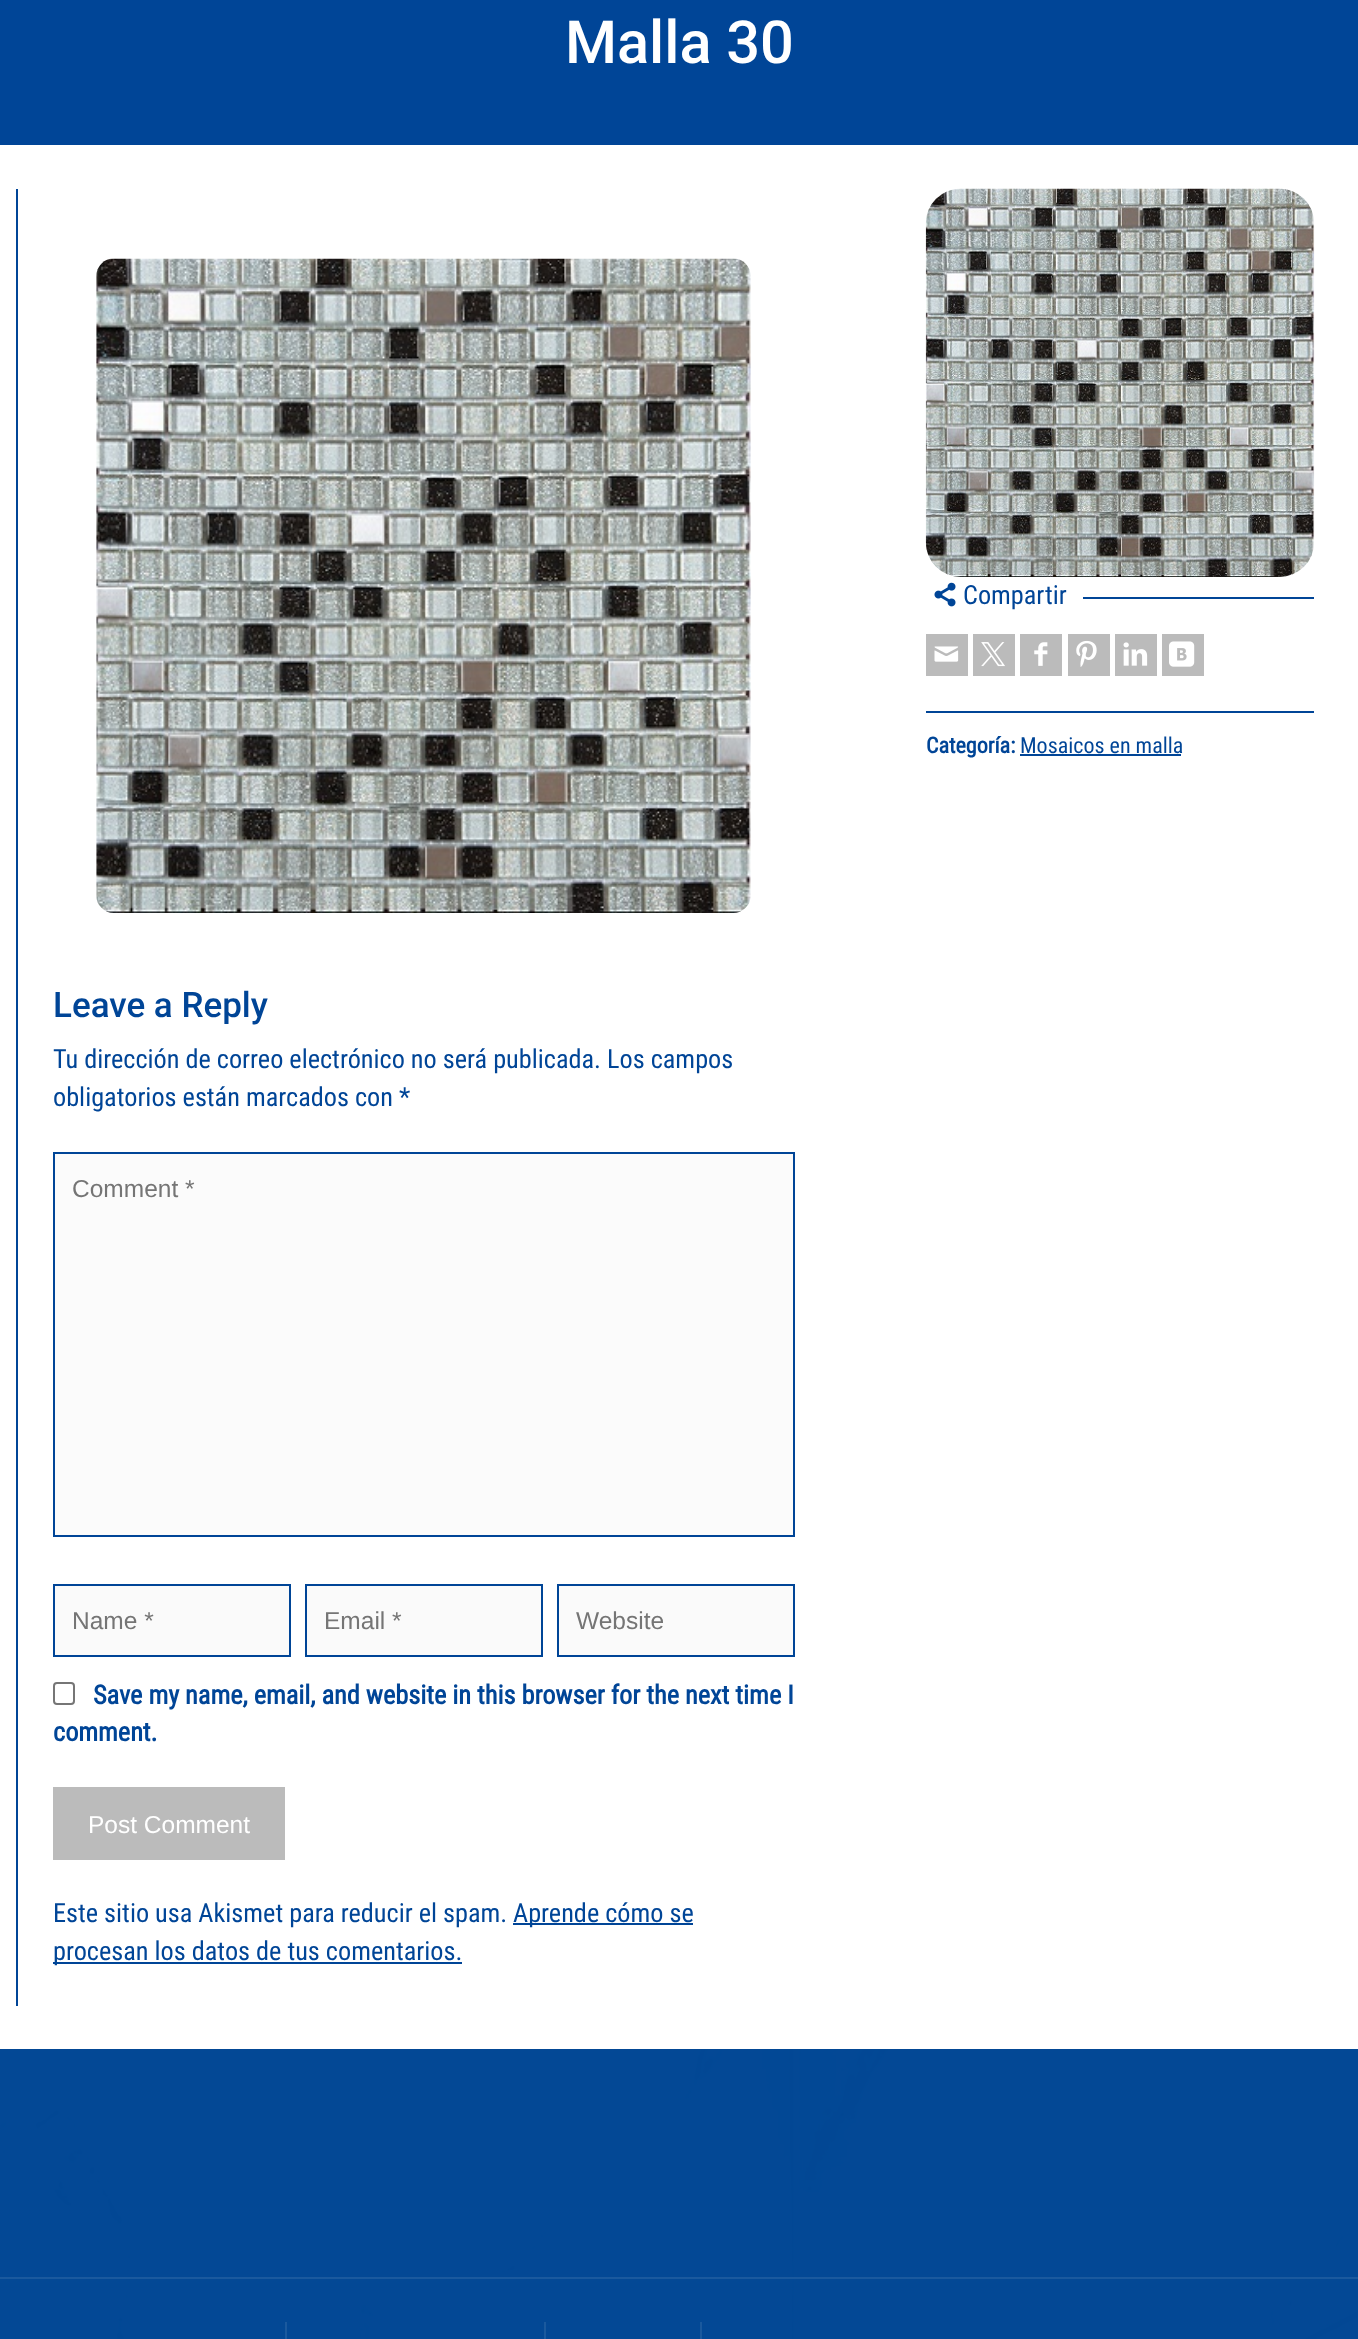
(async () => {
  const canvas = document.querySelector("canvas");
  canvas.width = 1358;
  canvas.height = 2339;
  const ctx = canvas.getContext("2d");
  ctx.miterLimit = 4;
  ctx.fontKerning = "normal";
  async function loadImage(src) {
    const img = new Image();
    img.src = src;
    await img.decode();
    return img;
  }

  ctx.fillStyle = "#1f5ca0";
  ctx.fillRect(0, 0, 1358, 2339);
  ctx.drawImage(await loadImage("img/1.png"), 0, 2049, 1358, 290);
  ctx.fillStyle = "#004597";
  ctx.fillRect(0, 0, 1358, 145);
  ctx.fillStyle = "#ffffff";
  ctx.fillRect(0, 145, 1358, 1904);
  ctx.drawImage(await loadImage("img/2.png"), 925, 188, 390, 389);
  ctx.drawImage(await loadImage("img/3.png"), 934, 582, 22, 25);
  ctx.fillStyle = "#004597";
  ctx.fillRect(1083, 597, 231, 2);
  ctx.fillStyle = "#bbbbbb";
  ctx.fillRect(926, 634, 42, 42);
  ctx.drawImage(await loadImage("img/4.png"), 934, 646, 25, 16);
  ctx.fillRect(973, 634, 42, 42);
  ctx.drawImage(await loadImage("img/5.png"), 981, 642, 24, 25);
  ctx.fillRect(1020, 634, 42, 42);
  ctx.drawImage(await loadImage("img/6.png"), 1034, 642, 14, 24);
  ctx.fillRect(1068, 634, 42, 42);
  ctx.drawImage(await loadImage("img/7.png"), 1076, 640, 21, 27);
  ctx.fillRect(1115, 634, 42, 42);
  ctx.drawImage(await loadImage("img/8.png"), 1123, 642, 25, 24);
  ctx.fillRect(1162, 634, 42, 42);
  ctx.drawImage(await loadImage("img/9.png"), 1169, 641, 26, 26);
  for (const [x, y, w, h, color] of [
    [926, 711, 388, 2, "#004597"],
    [1020, 754, 161, 2, "#004597"],
    [16, 189, 2, 1817, "#004597"],
  ]) {
    ctx.fillStyle = color;
    ctx.fillRect(x, y, w, h);
  }
  ctx.drawImage(await loadImage("img/10.png"), 96, 258, 655, 655);
  ctx.fillStyle = "#fbfbfb";
  ctx.beginPath();
  ctx.rect(54, 1153, 740, 383);
  ctx.fill();
  ctx.strokeStyle = "#004597";
  ctx.lineWidth = 2;
  ctx.stroke();
  ctx.fillStyle = "#fafafa";
  ctx.beginPath();
  ctx.rect(54, 1585, 236, 71);
  ctx.fill();
  ctx.stroke();
  ctx.beginPath();
  ctx.rect(306, 1585, 236, 71);
  ctx.fill();
  ctx.stroke();
  ctx.beginPath();
  ctx.rect(558, 1585, 236, 71);
  ctx.fill();
  ctx.stroke();
  ctx.beginPath();
  ctx.roundRect(54, 1683, 20, 21, 3);
  ctx.strokeStyle = "#767676";
  ctx.stroke();
  for (const [x, y, w, h, color] of [
    [53, 1787, 232, 73, "#bbbbbb"],
    [513, 1923, 180, 2, "#004597"],
    [53, 1962, 409, 2, "#004597"],
    [0, 2049, 1358, 228, "rgba(0, 70, 148, 0.87)"],
    [0, 2279, 1358, 60, "rgba(0, 70, 148, 0.87)"],
    [0, 2277, 1358, 2, "#1a599e"],
    [285, 2322, 2, 17, "#1a599e"],
    [544, 2322, 2, 17, "#1a599e"],
    [700, 2322, 2, 17, "#1a599e"],
  ]) {
    ctx.fillStyle = color;
    ctx.fillRect(x, y, w, h);
  }
  ctx.font = "500 59.5px Roboto";
  ctx.fillStyle = "#ffffff";
  ctx.fillText("Malla 30", 565, 63);
  ctx.font = "26.25px Roboto Condensed";
  ctx.fillStyle = "#004597";
  ctx.fillText("Compartir", 963, 604);
  ctx.font = "bold 22px Roboto Condensed";
  ctx.fillText("Categoría:", 926, 753);
  ctx.font = "22px Roboto Condensed";
  ctx.fillText("Mosaicos en malla", 1020, 753);
  ctx.font = "500 35px Roboto";
  ctx.fillText("Leave a Reply", 53, 1017);
  ctx.font = "26.25px Roboto Condensed";
  ctx.fillText("Tu dirección de correo electrónico no será publicada. Los campos", 53, 1068);
  ctx.fillText("obligatorios están marcados con *", 53, 1106);
  ctx.font = "24.5px Liberation Sans";
  ctx.fillStyle = "#757575";
  for (const [text, x, y] of [
    ["Comment *", 72, 1197],
    ["Name *", 72, 1629],
    ["Email *", 324, 1629],
    ["Website", 576, 1629],
  ]) {
    ctx.fillText(text, x, y);
  }
  ctx.font = "bold 26.25px Roboto Condensed";
  ctx.fillStyle = "#004597";
  ctx.fillText("Save my name, email, and website in this browser for the next time I", 93, 1704);
  ctx.fillText("comment.", 53, 1741);
  ctx.font = "24.5px Liberation Sans";
  ctx.fillStyle = "#ffffff";
  ctx.fillText("Post Comment", 88, 1833);
  ctx.font = "26.25px Roboto Condensed";
  ctx.fillStyle = "#004597";
  for (const [text, x, y] of [
    ["Este sitio usa Akismet para reducir el spam.", 53, 1922],
    ["Aprende cómo se", 513, 1922],
    ["procesan los datos de tus comentarios.", 53, 1960],
  ]) {
    ctx.fillText(text, x, y);
  }
})();
